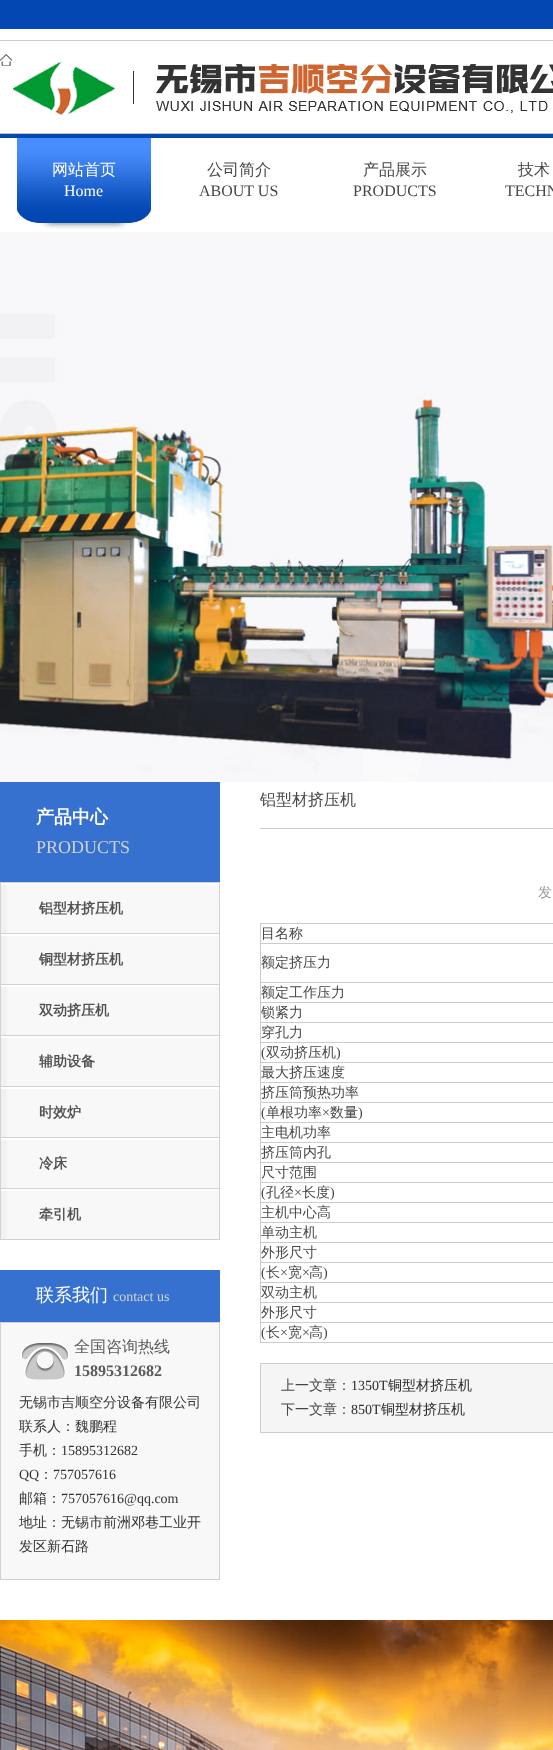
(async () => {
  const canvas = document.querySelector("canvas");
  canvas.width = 553;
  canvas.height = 1750;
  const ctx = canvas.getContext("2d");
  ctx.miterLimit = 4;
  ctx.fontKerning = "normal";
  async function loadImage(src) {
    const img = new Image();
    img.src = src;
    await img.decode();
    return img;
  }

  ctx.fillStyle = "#ffffff";
  ctx.fillRect(0, 0, 553, 1750);
  ctx.fillStyle = "#0348b2";
  ctx.fillRect(0, 0, 553, 29);
  ctx.fillStyle = "#cccccc";
  ctx.fillRect(0, 40, 553, 1);
  ctx.drawImage(await loadImage("img/1.png"), 0, 54, 12, 12);
  ctx.fillStyle = "#bfbfbf";
  ctx.fillRect(0, 133, 553, 1);
  ctx.drawImage(await loadImage("img/2.png"), 13, 61, 540, 54);
  ctx.fillStyle = "#0348b2";
  ctx.fillRect(0, 134, 553, 4);
  ctx.drawImage(await loadImage("img/3.png"), 17, 138, 134, 91);
  ctx.drawImage(await loadImage("img/4.png"), 0, 232, 553, 550);
  for (const [x, y, w, h, color] of [
    [0, 782, 220, 100, "#3671cf"],
    [0, 882, 220, 1, "#d1d1d1"],
    [219, 883, 1, 357, "#d1d1d1"],
    [0, 883, 1, 357, "#d1d1d1"],
    [7, 885, 212, 48, "#f8f8f8"],
    [1, 933, 218, 1, "#d2d2d2"],
    [1, 885, 6, 48, "#f1f1f1"],
    [7, 936, 212, 48, "#f8f8f8"],
    [1, 984, 218, 1, "#d2d2d2"],
    [1, 936, 6, 48, "#f1f1f1"],
    [7, 987, 212, 48, "#f8f8f8"],
    [1, 1035, 218, 1, "#d2d2d2"],
    [1, 987, 6, 48, "#f1f1f1"],
    [7, 1038, 212, 48, "#f8f8f8"],
    [1, 1086, 218, 1, "#d2d2d2"],
    [1, 1038, 6, 48, "#f1f1f1"],
    [7, 1089, 212, 48, "#f8f8f8"],
    [1, 1137, 218, 1, "#d2d2d2"],
    [1, 1089, 6, 48, "#f1f1f1"],
    [7, 1140, 212, 48, "#f8f8f8"],
    [1, 1188, 218, 1, "#d2d2d2"],
    [1, 1140, 6, 48, "#f1f1f1"],
    [7, 1191, 212, 48, "#f8f8f8"],
    [1, 1239, 218, 1, "#d2d2d2"],
    [1, 1191, 6, 48, "#f1f1f1"],
    [0, 1270, 220, 52, "#3671cf"],
    [1, 1323, 218, 256, "#f8f8f8"],
  ]) {
    ctx.fillStyle = color;
    ctx.fillRect(x, y, w, h);
  }
  ctx.drawImage(await loadImage("img/5.png"), 21, 1343, 48, 37);
  ctx.strokeStyle = "#d1d1d1";
  ctx.strokeRect(0.5, 1322.5, 219, 257);
  for (const [x, y, w, h, color] of [
    [260, 828, 293, 1, "#cccccc"],
    [260, 923, 293, 1, "#cccccc"],
    [260, 1342, 293, 1, "#cccccc"],
    [260, 923, 1, 420, "#cccccc"],
    [260, 943, 293, 1, "#cccccc"],
    [260, 982, 293, 1, "#cccccc"],
    [260, 1002, 293, 1, "#cccccc"],
    [260, 1022, 293, 1, "#cccccc"],
    [260, 1042, 293, 1, "#cccccc"],
    [260, 1062, 293, 1, "#cccccc"],
    [260, 1082, 293, 1, "#cccccc"],
    [260, 1102, 293, 1, "#cccccc"],
    [260, 1122, 293, 1, "#cccccc"],
    [260, 1142, 293, 1, "#cccccc"],
    [260, 1162, 293, 1, "#cccccc"],
    [260, 1182, 293, 1, "#cccccc"],
    [260, 1202, 293, 1, "#cccccc"],
    [260, 1222, 293, 1, "#cccccc"],
    [260, 1242, 293, 1, "#cccccc"],
    [260, 1262, 293, 1, "#cccccc"],
    [260, 1282, 293, 1, "#cccccc"],
    [260, 1302, 293, 1, "#cccccc"],
    [260, 1322, 293, 1, "#cccccc"],
  ]) {
    ctx.fillStyle = color;
    ctx.fillRect(x, y, w, h);
  }
  ctx.fillStyle = "#f5f5f5";
  ctx.beginPath();
  ctx.rect(260.5, 1363.5, 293, 69);
  ctx.fill();
  ctx.strokeStyle = "#cccccc";
  ctx.stroke();
  ctx.drawImage(await loadImage("img/6.png"), 0, 1620, 553, 130);
  ctx.font = "500 16px WenQuanYi Zen Hei";
  ctx.fillStyle = "#ffffff";
  ctx.fillText("网站首页", 52, 175);
  ctx.font = "16px Liberation Serif";
  ctx.fillText("Home", 64, 196);
  ctx.font = "500 16px WenQuanYi Zen Hei";
  ctx.fillStyle = "#484747";
  ctx.fillText("公司简介", 207, 175);
  ctx.font = "16px Liberation Serif";
  ctx.fillText("ABOUT US", 199, 196);
  ctx.font = "500 16px WenQuanYi Zen Hei";
  ctx.fillText("产品展示", 363, 175);
  ctx.font = "16px Liberation Serif";
  ctx.fillText("PRODUCTS", 353, 196);
  ctx.font = "500 16px WenQuanYi Zen Hei";
  ctx.fillText("技术", 518, 175);
  ctx.font = "16px Liberation Serif";
  ctx.fillText("TECHN", 505, 196);
  ctx.font = "bold 18px WenQuanYi Zen Hei";
  ctx.fillStyle = "#ffffff";
  ctx.fillText("产品中心", 36, 823);
  ctx.font = "18px Liberation Serif";
  ctx.fillStyle = "#d1d1d1";
  ctx.fillText("PRODUCTS", 36, 853);
  ctx.font = "bold 14px WenQuanYi Zen Hei";
  ctx.fillStyle = "#525252";
  for (const [text, x, y] of [
    ["铝型材挤压机", 39, 913],
    ["铜型材挤压机", 39, 964],
    ["双动挤压机", 39, 1015],
    ["辅助设备", 39, 1066],
    ["时效炉", 39, 1117],
    ["冷床", 39, 1168],
    ["牵引机", 39, 1219],
  ]) {
    ctx.fillText(text, x, y);
  }
  ctx.font = "500 18px WenQuanYi Zen Hei";
  ctx.fillStyle = "#ffffff";
  ctx.fillText("联系我们", 36, 1301);
  ctx.font = "14px Liberation Serif";
  ctx.fillStyle = "#d1d1d1";
  ctx.fillText("contact us", 113, 1301);
  ctx.font = "500 16px WenQuanYi Zen Hei";
  ctx.fillStyle = "#5b5b5b";
  ctx.fillText("全国咨询热线", 74, 1352);
  ctx.font = "bold 16px Liberation Serif";
  ctx.fillText("15895312682", 74, 1376);
  ctx.font = "500 14px WenQuanYi Zen Hei";
  ctx.fillStyle = "#333333";
  for (const [text, x, y] of [
    ["无锡市吉顺空分设备有限公司", 19, 1407],
    ["联系人：魏鹏程", 19, 1431],
    ["手机：", 19, 1455],
  ]) {
    ctx.fillText(text, x, y);
  }
  ctx.font = "14px Liberation Serif";
  ctx.fillText("15895312682", 61, 1455);
  ctx.fillText("QQ", 19, 1479);
  ctx.font = "500 14px WenQuanYi Zen Hei";
  ctx.fillText("：", 39, 1479);
  ctx.font = "14px Liberation Serif";
  ctx.fillText("757057616", 53, 1479);
  ctx.font = "500 14px WenQuanYi Zen Hei";
  ctx.fillText("邮箱：", 19, 1503);
  ctx.font = "14px Liberation Serif";
  ctx.fillText("757057616@qq.com", 61, 1503);
  ctx.font = "500 14px WenQuanYi Zen Hei";
  ctx.fillText("地址：无锡市前洲邓巷工业开", 19, 1527);
  ctx.fillText("发区新石路", 19, 1551);
  ctx.font = "500 16px WenQuanYi Zen Hei";
  ctx.fillStyle = "#484747";
  ctx.fillText("铝型材挤压机", 260, 805);
  ctx.font = "500 14px WenQuanYi Zen Hei";
  ctx.fillStyle = "#999999";
  ctx.fillText("发", 538, 897);
  ctx.fillStyle = "#484747";
  for (const [text, x, y] of [
    ["目名称", 261, 938],
    ["额定挤压力", 261, 967],
    ["额定工作压力", 261, 997],
    ["锁紧力", 261, 1017],
    ["穿孔力", 261, 1037],
  ]) {
    ctx.fillText(text, x, y);
  }
  ctx.font = "14px Liberation Serif";
  ctx.fillText("(", 261, 1057);
  ctx.font = "500 14px WenQuanYi Zen Hei";
  ctx.fillText("双动挤压机", 266, 1057);
  ctx.font = "14px Liberation Serif";
  ctx.fillText(")", 336, 1057);
  ctx.font = "500 14px WenQuanYi Zen Hei";
  ctx.fillText("最大挤压速度", 261, 1077);
  ctx.fillText("挤压筒预热功率", 261, 1097);
  ctx.font = "14px Liberation Serif";
  ctx.fillText("(", 261, 1117);
  ctx.font = "500 14px WenQuanYi Zen Hei";
  ctx.fillText("单根功率", 266, 1117);
  ctx.font = "14px Liberation Serif";
  ctx.fillText("×", 322, 1117);
  ctx.font = "500 14px WenQuanYi Zen Hei";
  ctx.fillText("数量", 330, 1117);
  ctx.font = "14px Liberation Serif";
  ctx.fillText(")", 358, 1117);
  ctx.font = "500 14px WenQuanYi Zen Hei";
  for (const [text, x, y] of [
    ["主电机功率", 261, 1137],
    ["挤压筒内孔", 261, 1157],
    ["尺寸范围", 261, 1177],
  ]) {
    ctx.fillText(text, x, y);
  }
  ctx.font = "14px Liberation Serif";
  ctx.fillText("(", 261, 1197);
  ctx.font = "500 14px WenQuanYi Zen Hei";
  ctx.fillText("孔径", 266, 1197);
  ctx.font = "14px Liberation Serif";
  ctx.fillText("×", 294, 1197);
  ctx.font = "500 14px WenQuanYi Zen Hei";
  ctx.fillText("长度", 302, 1197);
  ctx.font = "14px Liberation Serif";
  ctx.fillText(")", 330, 1197);
  ctx.font = "500 14px WenQuanYi Zen Hei";
  for (const [text, x, y] of [
    ["主机中心高", 261, 1217],
    ["单动主机", 261, 1237],
    ["外形尺寸", 261, 1257],
  ]) {
    ctx.fillText(text, x, y);
  }
  ctx.font = "14px Liberation Serif";
  ctx.fillText("(", 261, 1277);
  ctx.font = "500 14px WenQuanYi Zen Hei";
  ctx.fillText("长", 266, 1277);
  ctx.font = "14px Liberation Serif";
  ctx.fillText("×", 280, 1277);
  ctx.font = "500 14px WenQuanYi Zen Hei";
  ctx.fillText("宽", 288, 1277);
  ctx.font = "14px Liberation Serif";
  ctx.fillText("×", 302, 1277);
  ctx.font = "500 14px WenQuanYi Zen Hei";
  ctx.fillText("高", 309, 1277);
  ctx.font = "14px Liberation Serif";
  ctx.fillText(")", 323, 1277);
  ctx.font = "500 14px WenQuanYi Zen Hei";
  ctx.fillText("双动主机", 261, 1297);
  ctx.fillText("外形尺寸", 261, 1317);
  ctx.font = "14px Liberation Serif";
  ctx.fillText("(", 261, 1337);
  ctx.font = "500 14px WenQuanYi Zen Hei";
  ctx.fillText("长", 266, 1337);
  ctx.font = "14px Liberation Serif";
  ctx.fillText("×", 280, 1337);
  ctx.font = "500 14px WenQuanYi Zen Hei";
  ctx.fillText("宽", 288, 1337);
  ctx.font = "14px Liberation Serif";
  ctx.fillText("×", 302, 1337);
  ctx.font = "500 14px WenQuanYi Zen Hei";
  ctx.fillText("高", 309, 1337);
  ctx.font = "14px Liberation Serif";
  ctx.fillText(")", 323, 1337);
  ctx.font = "500 14px WenQuanYi Zen Hei";
  ctx.fillText("上一文章：", 281, 1390);
  ctx.font = "14px Liberation Serif";
  ctx.fillStyle = "#2c2c2c";
  ctx.fillText("1350T", 351, 1390);
  ctx.font = "500 14px WenQuanYi Zen Hei";
  ctx.fillText("铜型材挤压机", 388, 1390);
  ctx.fillStyle = "#484747";
  ctx.fillText("下一文章：", 281, 1414);
  ctx.font = "14px Liberation Serif";
  ctx.fillStyle = "#2c2c2c";
  ctx.fillText("850T", 351, 1414);
  ctx.font = "500 14px WenQuanYi Zen Hei";
  ctx.fillText("铜型材挤压机", 381, 1414);
})();
